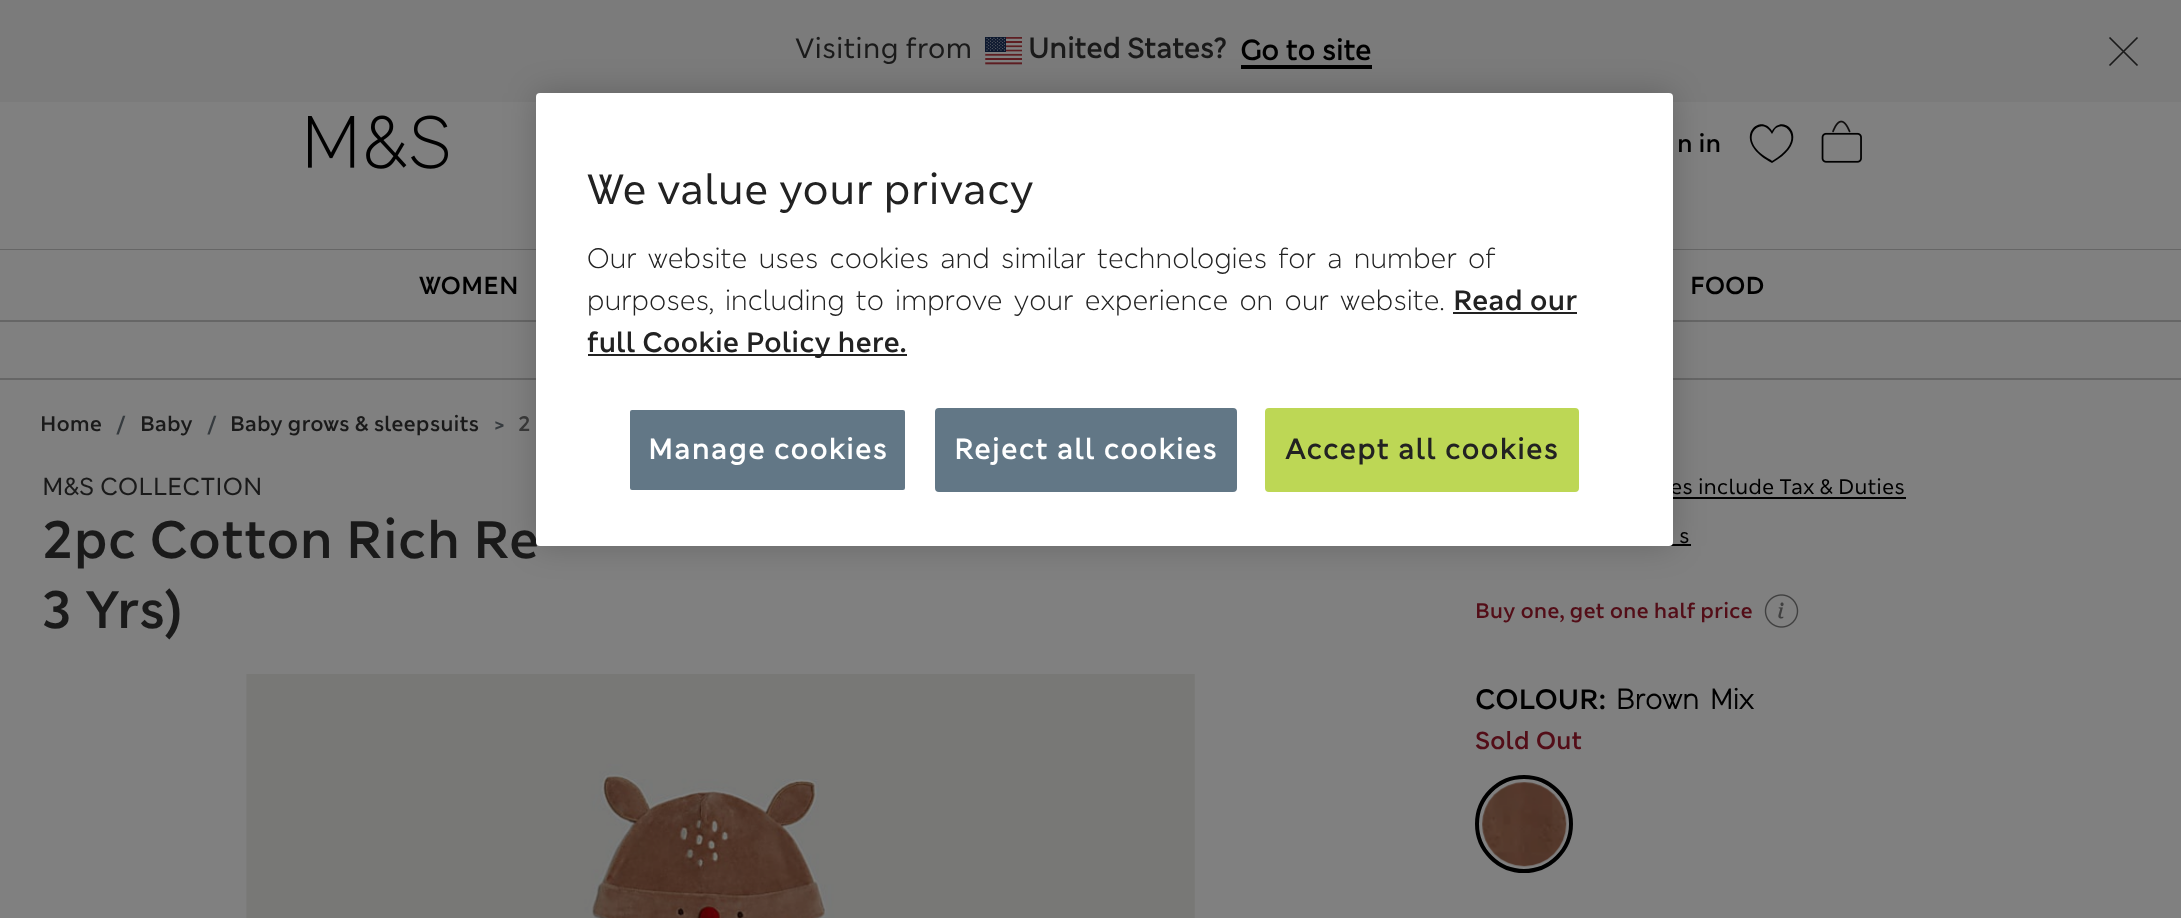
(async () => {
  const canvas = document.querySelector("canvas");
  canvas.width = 2181;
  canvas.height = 918;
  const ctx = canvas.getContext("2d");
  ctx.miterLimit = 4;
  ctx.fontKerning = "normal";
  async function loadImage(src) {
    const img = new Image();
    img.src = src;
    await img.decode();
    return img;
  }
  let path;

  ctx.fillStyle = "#808080";
  ctx.fillRect(0, 0, 2181, 918);
  ctx.fillStyle = "#7b7b7b";
  ctx.fillRect(0, 0, 2181, 102);
  ctx.drawImage(await loadImage("img/1.png"), 985, 37, 37, 28);
  ctx.fillStyle = "#000000";
  ctx.fillRect(1241, 65, 131, 4);
  path = new Path2D("M2109.5 37.5L2137.5 65.5M2137.5 37.5L2109.5 65.5");
  ctx.strokeStyle = "#1a1a1a";
  ctx.lineWidth = 1.7;
  ctx.stroke(path);
  ctx.fillStyle = "#666666";
  ctx.fillRect(0, 320, 2181, 2);
  ctx.fillRect(0, 249, 2181, 1);
  ctx.drawImage(await loadImage("img/2.png"), 308, 115, 140, 54);
  ctx.fillStyle = "#000000";
  path = new Path2D("M1772 163C1729 140 1760 111 1772 131C1783 111 1814 140 1772 163ZM1790 132C1787 126 1780 124 1775 129L1772 134L1770 131C1765 124 1757 125 1753 132C1749 140 1754 151 1771 160L1772 161C1781 156 1796 144 1790 132Z");
  ctx.fill(path);
  ctx.drawImage(await loadImage("img/3.png"), 1821, 120, 41, 43);
  ctx.fillStyle = "#666666";
  ctx.fillRect(0, 378, 2181, 2);
  ctx.drawImage(await loadImage("img/4.png"), 246, 674, 949, 244);
  ctx.fillStyle = "#000000";
  ctx.fillRect(1673, 497, 233, 2);
  ctx.fillRect(1669, 544, 22, 2);
  ctx.drawImage(await loadImage("img/5.png"), 1764, 594, 35, 34);
  ctx.beginPath();
  ctx.arc(1524, 824, 47, 0, Math.PI * 2);
  ctx.strokeStyle = "#000000";
  ctx.lineWidth = 4;
  ctx.stroke();
  ctx.drawImage(await loadImage("img/6.png"), 1482, 782, 85, 85);
  ctx.fillStyle = "rgba(0, 0, 0, 0.2)";
  ctx.filter = "blur(16px)";
  ctx.beginPath();
  ctx.roundRect(536, 93, 1137, 453, 4);
  ctx.fill();
  ctx.filter = "none";
  ctx.font = "28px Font";
  ctx.fillStyle = "#1a1a1a";
  ctx.fillText("Visiting from", 795, 58);
  ctx.font = "bold 28px Font";
  ctx.fillText("United States?", 1028, 58);
  ctx.fillStyle = "#000000";
  ctx.fillText("Go to site", 1240, 60);
  ctx.font = "600 24.5px Font";
  for (const [text, x, y] of [
    ["n in", 1677, 152],
    ["WOMEN", 419, 294],
    ["FOOD", 1690, 294],
  ]) {
    ctx.fillText(text, x, y);
  }
  ctx.font = "600 21px Font";
  ctx.fillStyle = "#1a1a1a";
  ctx.fillText("Home", 40, 431);
  ctx.fillStyle = "#363b3f";
  ctx.fillText("/", 116, 431);
  ctx.fillStyle = "#1a1a1a";
  ctx.fillText("Baby", 140, 431);
  ctx.fillStyle = "#363b3f";
  ctx.fillText("/", 207, 431);
  ctx.fillStyle = "#1a1a1a";
  ctx.fillText("Baby grows & sleepsuits", 230, 431);
  ctx.fillStyle = "#363b3f";
  ctx.fillText(">", 494, 431);
  ctx.fillStyle = "#373737";
  ctx.fillText("2", 518, 431);
  ctx.font = "24.5px Font";
  ctx.fillStyle = "#1a1a1a";
  ctx.fillText("M&S COLLECTION", 42, 495);
  ctx.font = "600 52.5px Font";
  ctx.fillText("2pc Cotton Rich Re", 42, 558);
  ctx.fillText("3 Yrs)", 42, 628);
  ctx.font = "21px Font";
  ctx.fillStyle = "#000000";
  ctx.fillText("es include Tax & Duties", 1670, 494);
  ctx.fillText("s", 1679, 543);
  ctx.font = "600 21px Font";
  ctx.fillStyle = "#530d17";
  ctx.fillText("Buy one, get one half price", 1475, 618);
  ctx.font = "600 28px Font";
  ctx.fillStyle = "#000000";
  ctx.fillText("COLOUR:", 1475, 709);
  ctx.font = "bold 28px 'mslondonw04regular'";
  ctx.fillText("Brown Mix", 1616, 709);
  ctx.font = "600 24.5px Font";
  ctx.fillStyle = "#530d17";
  ctx.fillText("Sold Out", 1475, 749);
  ctx.fillStyle = "#ffffff";
  ctx.beginPath();
  ctx.roundRect(536, 93, 1137, 453, 4);
  ctx.fill();
  ctx.font = "42px Font";
  ctx.fillStyle = "#222222";
  ctx.fillText("We value your privacy", 587, 204);
  ctx.font = "28px 'mslondonw04regular'";
  ctx.fillText("Our website uses cookies and similar technologies for a number of", 587, 268);
  ctx.fillText("purposes, including to improve your experience on our website.", 587, 310);
  ctx.font = "600 28px Font";
  ctx.fillText("Read our", 1453, 310);
  ctx.fillRect(1453, 312, 124, 2);
  ctx.fillRect(588, 354, 319, 2);
  ctx.fillText("full Cookie Policy here.", 587, 352);
  ctx.fillStyle = "#627786";
  ctx.beginPath();
  ctx.roundRect(629, 409, 277, 82, 3);
  ctx.fill();
  ctx.strokeStyle = "#ffffff";
  ctx.lineWidth = 2;
  ctx.stroke();
  ctx.letterSpacing = "1.4px";
  ctx.font = "bold 28px Font";
  ctx.fillStyle = "#ffffff";
  ctx.fillText("Manage cookies", 648, 459);
  ctx.fillStyle = "#627786";
  ctx.beginPath();
  ctx.roundRect(936, 409, 300, 82, 3);
  ctx.fill();
  ctx.strokeStyle = "#627786";
  ctx.stroke();
  ctx.fillStyle = "#ffffff";
  ctx.fillText("Reject all cookies", 954, 459);
  ctx.fillStyle = "#bdd755";
  ctx.beginPath();
  ctx.roundRect(1266, 409, 312, 82, 3);
  ctx.fill();
  ctx.strokeStyle = "#bdd755";
  ctx.stroke();
  ctx.fillStyle = "#222222";
  ctx.fillText("Accept all cookies", 1285, 459);
})();
